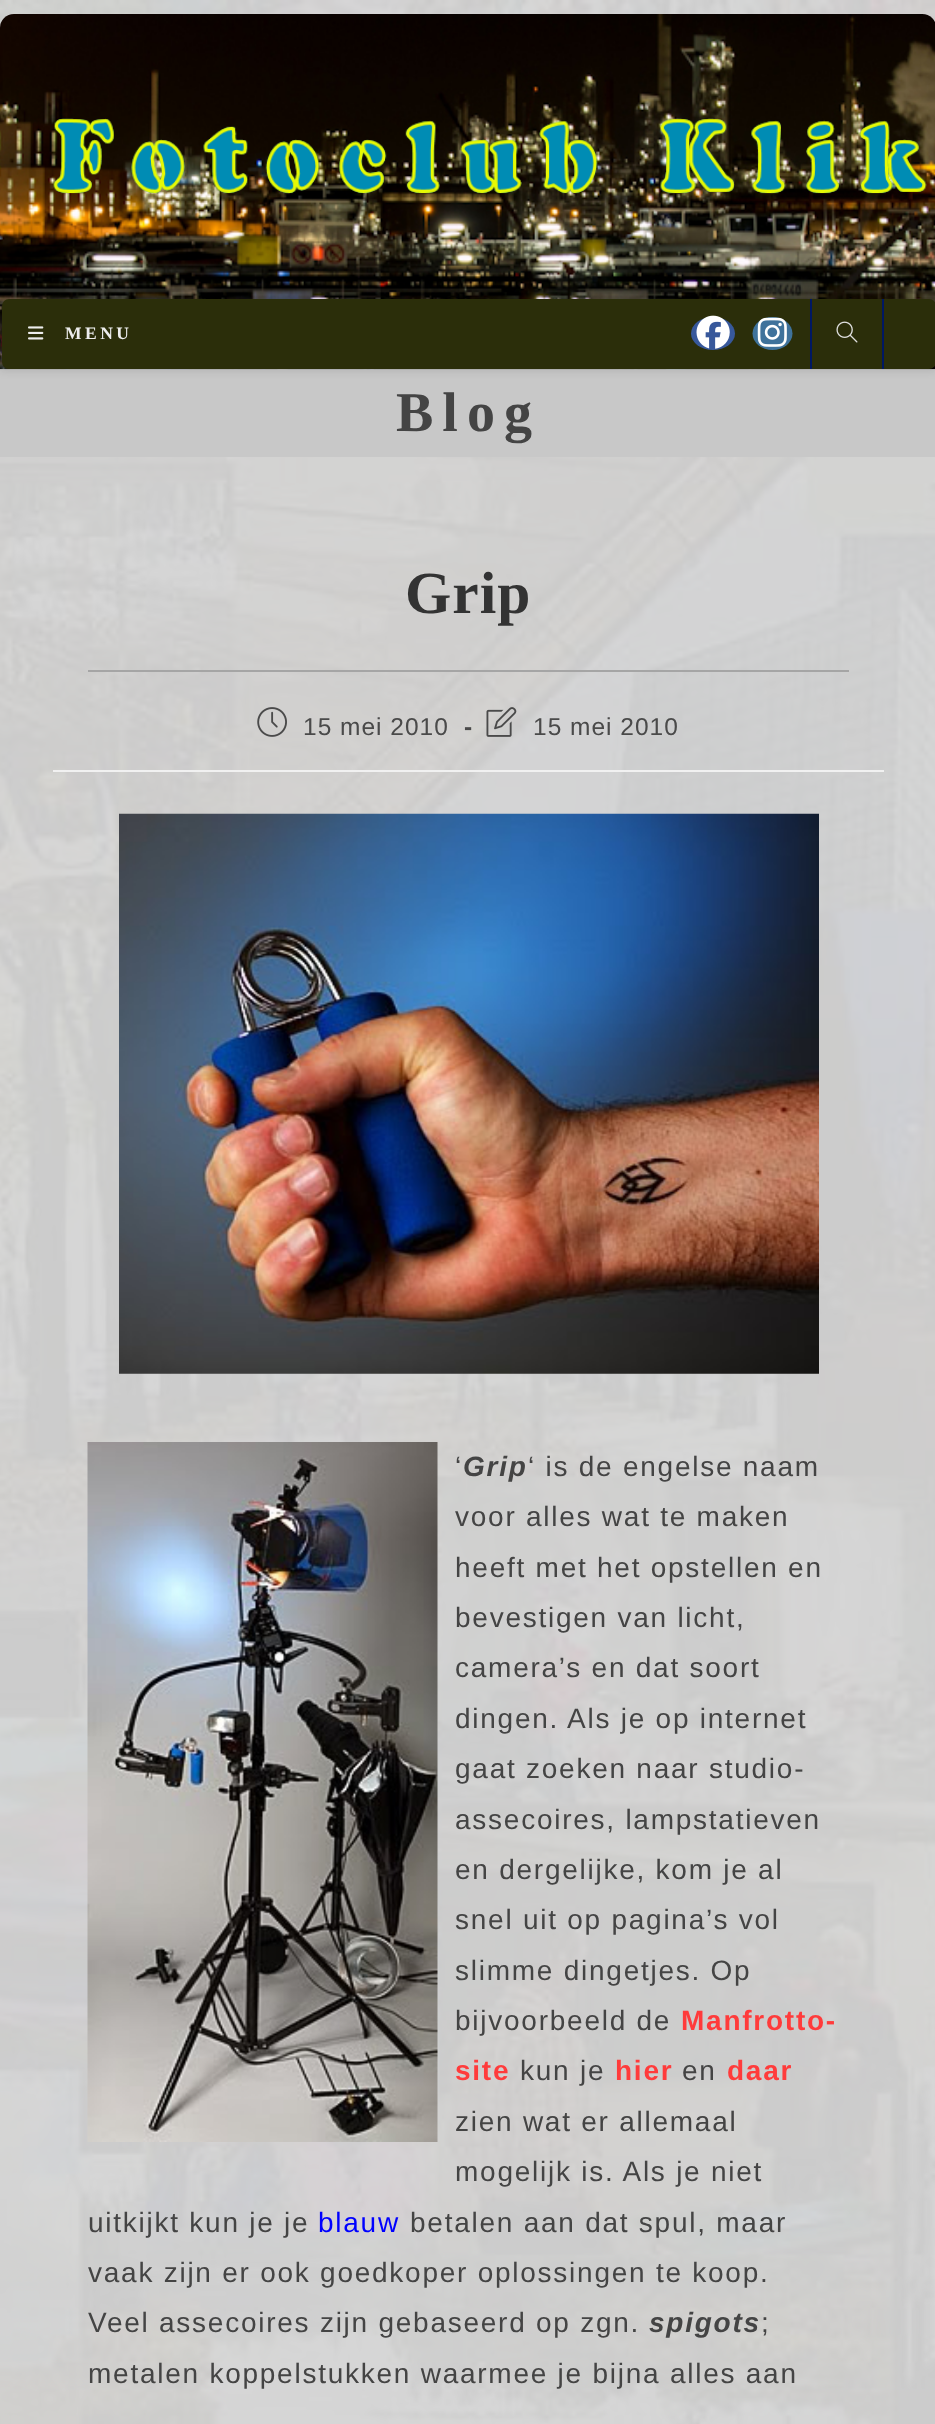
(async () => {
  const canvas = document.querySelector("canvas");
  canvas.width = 935;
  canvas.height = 2424;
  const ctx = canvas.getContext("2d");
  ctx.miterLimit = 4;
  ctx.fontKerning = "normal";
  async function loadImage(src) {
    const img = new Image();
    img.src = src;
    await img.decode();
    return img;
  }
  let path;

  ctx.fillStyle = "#ffffff";
  ctx.fillRect(0, 0, 935, 2424);
  ctx.drawImage(await loadImage("img/1.png"), 0, 0, 935, 2424);
  ctx.fillStyle = "#c8c8c8";
  ctx.fillRect(0, 369, 935, 88);
  ctx.drawImage(await loadImage("img/2.png"), 0, 14, 935, 356);
  ctx.drawImage(await loadImage("img/3.png"), 53, 118, 874, 76);
  ctx.save();
  path = new Path2D("M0 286H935V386H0ZM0 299H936V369H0Z");
  ctx.clip(path, "evenodd");
  ctx.fillStyle = "rgba(0, 0, 0, 0.1)";
  ctx.filter = "blur(4.5px)";
  ctx.beginPath();
  ctx.rect(0, 301, 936, 70);
  ctx.fill();
  ctx.filter = "none";
  ctx.restore();
  ctx.fillStyle = "#2b2e0a";
  ctx.beginPath();
  ctx.roundRect(2, 299, 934, 70, 7);
  ctx.fill();
  ctx.drawImage(await loadImage("img/4.png"), 28, 326, 16, 14);
  ctx.fillStyle = "#37589b";
  ctx.beginPath();
  ctx.ellipse(713, 333.5, 22, 16.5, 0, 0, Math.PI * 2);
  ctx.fill();
  ctx.drawImage(await loadImage("img/5.png"), 696, 315, 34, 34);
  ctx.fillStyle = "#3f729b";
  ctx.beginPath();
  ctx.ellipse(772.5, 333.5, 20, 16.5, 0, 0, Math.PI * 2);
  ctx.fill();
  ctx.drawImage(await loadImage("img/6.png"), 757, 317, 30, 30);
  ctx.fillStyle = "#001863";
  ctx.fillRect(882, 299, 2, 70);
  ctx.fillRect(810, 299, 2, 70);
  ctx.drawImage(await loadImage("img/7.png"), 836, 321, 22, 22);
  ctx.fillStyle = "#a5a5a5";
  ctx.fillRect(88, 670, 761, 2);
  ctx.fillStyle = "#f1f1f1";
  ctx.fillRect(53, 770, 831, 2);
  ctx.drawImage(await loadImage("img/8.png"), 257, 707, 30, 30);
  ctx.drawImage(await loadImage("img/9.png"), 486, 707, 31, 30);
  ctx.drawImage(await loadImage("img/10.png"), 119, 813, 700, 561);
  ctx.drawImage(await loadImage("img/11.png"), 87, 1442, 351, 700);
  ctx.letterSpacing = "3.5px";
  ctx.font = "bold 17.5px Liberation Serif";
  ctx.fillStyle = "#ededed";
  ctx.fillText("MENU", 65, 339);
  ctx.letterSpacing = "9px";
  ctx.font = "bold 56px Liberation Serif";
  ctx.fillStyle = "#444444";
  ctx.fillText("Blog", 396, 431);
  ctx.letterSpacing = "1px";
  ctx.font = "bold 59.5px Liberation Serif";
  ctx.fillStyle = "#333333";
  ctx.fillText("Grip", 405, 613);
  ctx.font = "24.5px Liberation Sans";
  ctx.fillStyle = "#4a4a4a";
  ctx.fillText("15 mei 2010", 303, 735);
  ctx.font = "bold 24.5px Liberation Sans";
  ctx.fillText("-", 464, 735);
  ctx.font = "24.5px Liberation Sans";
  ctx.fillText("15 mei 2010", 533, 735);
  ctx.letterSpacing = "1.75px";
  ctx.font = "28px Liberation Sans";
  ctx.fillStyle = "#444444";
  ctx.fillText("‘", 455, 1476);
  ctx.font = "italic bold 28px Liberation Sans";
  ctx.fillText("Grip", 463, 1476);
  ctx.font = "28px Liberation Sans";
  for (const [text, x, y] of [
    ["‘ is de engelse naam", 528, 1476],
    ["voor alles wat te maken", 455, 1526],
    ["heeft met het opstellen en", 455, 1577],
    ["bevestigen van licht,", 455, 1627],
    ["camera’s en dat soort", 455, 1677],
    ["dingen. Als je op internet", 455, 1728],
    ["gaat zoeken naar studio-", 455, 1778],
    ["assecoires, lampstatieven", 455, 1829],
    ["en dergelijke, kom je al", 455, 1879],
    ["snel uit op pagina’s vol", 455, 1929],
    ["slimme dingetjes. Op", 455, 1980],
    ["bijvoorbeeld de", 455, 2030],
  ]) {
    ctx.fillText(text, x, y);
  }
  ctx.font = "bold 28px Liberation Sans";
  ctx.fillStyle = "#ff3b3b";
  ctx.fillText("Manfrotto-", 681, 2030);
  ctx.fillText("site", 455, 2080);
  ctx.font = "28px Liberation Sans";
  ctx.fillStyle = "#444444";
  ctx.fillText("kun je", 520, 2080);
  ctx.font = "bold 28px Liberation Sans";
  ctx.fillStyle = "#ff3b3b";
  ctx.fillText("hier", 615, 2080);
  ctx.font = "28px Liberation Sans";
  ctx.fillStyle = "#444444";
  ctx.fillText("en", 682, 2080);
  ctx.font = "bold 28px Liberation Sans";
  ctx.fillStyle = "#ff3b3b";
  ctx.fillText("daar", 727, 2080);
  ctx.font = "28px Liberation Sans";
  ctx.fillStyle = "#444444";
  for (const [text, x, y] of [
    ["zien wat er allemaal", 455, 2131],
    ["mogelijk is. Als je niet", 455, 2181],
    ["uitkijkt kun je je", 88, 2232],
  ]) {
    ctx.fillText(text, x, y);
  }
  ctx.fillStyle = "#0000ff";
  ctx.fillText("blauw", 318, 2232);
  ctx.fillStyle = "#444444";
  for (const [text, x, y] of [
    ["betalen aan dat spul, maar", 410, 2232],
    ["vaak zijn er ook goedkoper oplossingen te koop.", 88, 2282],
    ["Veel assecoires zijn gebaseerd op zgn.", 88, 2332],
  ]) {
    ctx.fillText(text, x, y);
  }
  ctx.font = "italic bold 28px Liberation Sans";
  ctx.fillText("spigots", 649, 2332);
  ctx.font = "28px Liberation Sans";
  ctx.fillText(";", 761, 2332);
  ctx.fillText("metalen koppelstukken waarmee je bijna alles aan", 88, 2383);
})();
